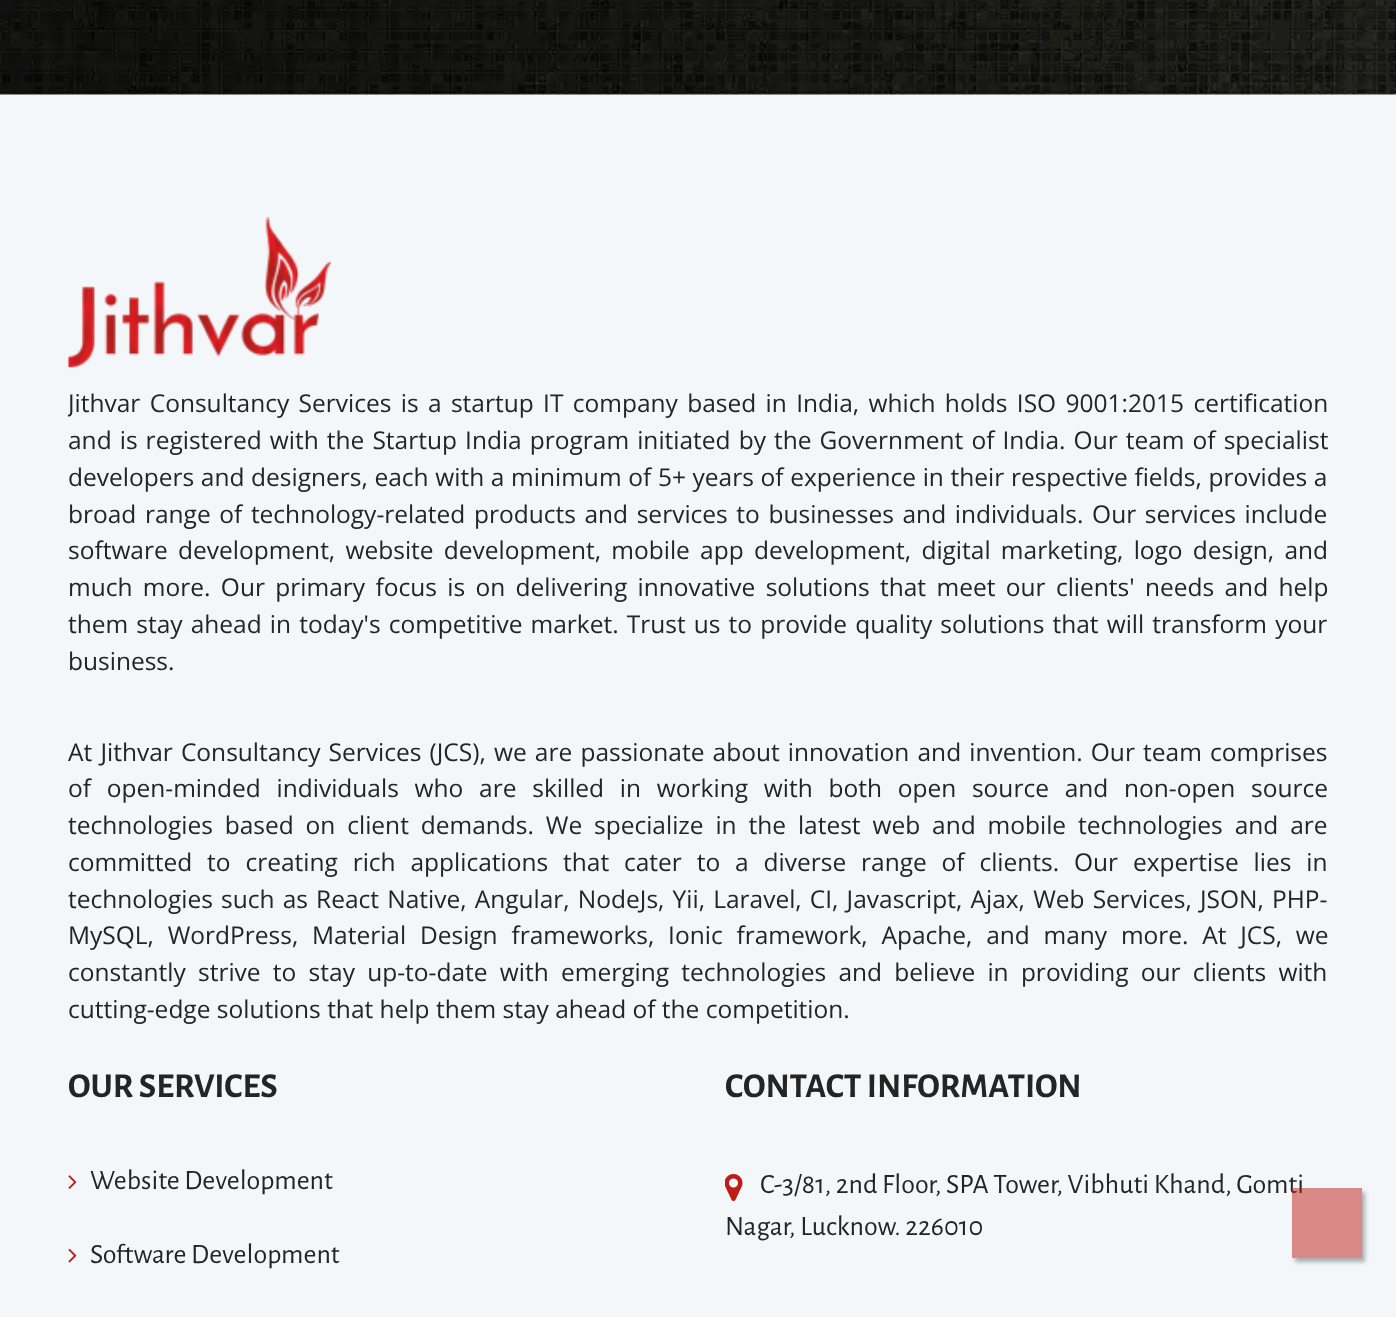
(async () => {
  const canvas = document.querySelector("canvas");
  canvas.width = 1396;
  canvas.height = 1317;
  const ctx = canvas.getContext("2d");
  ctx.miterLimit = 4;
  ctx.fontKerning = "normal";
  async function loadImage(src) {
    const img = new Image();
    img.src = src;
    await img.decode();
    return img;
  }
  let path;

  ctx.fillStyle = "#ffffff";
  ctx.fillRect(0, 0, 1396, 1317);
  ctx.drawImage(await loadImage("img/1.png"), 0, 0, 1396, 95);
  ctx.fillStyle = "#f4f7fa";
  ctx.fillRect(0, 95, 1396, 1222);
  ctx.drawImage(await loadImage("img/2.png"), 68, 217, 263, 151);
  ctx.drawImage(await loadImage("img/3.png"), 68, 1175, 9, 14);
  ctx.drawImage(await loadImage("img/4.png"), 68, 1248, 9, 15);
  ctx.drawImage(await loadImage("img/5.png"), 725, 1174, 18, 27);
  ctx.save();
  path = new Path2D("M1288 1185H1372V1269H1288ZM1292 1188H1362V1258H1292Z");
  ctx.clip(path, "evenodd");
  ctx.fillStyle = "rgba(122, 124, 125, 0.6)";
  ctx.filter = "blur(2px)";
  ctx.beginPath();
  ctx.rect(1295, 1192, 70, 70);
  ctx.fill();
  ctx.filter = "none";
  ctx.restore();
  ctx.save();
  ctx.beginPath();
  ctx.rect(68, 217, 1260, 828);
  ctx.clip();
  ctx.wordSpacing = "3px";
  ctx.font = "24.5px Open Sans";
  ctx.fillStyle = "#242424";
  ctx.fillText("Jithvar Consultancy Services is a startup IT company based in India, which holds ISO 9001:2015 certification", 68, 412);
  ctx.restore();
  ctx.wordSpacing = "1.7px";
  ctx.font = "24.5px Open Sans";
  ctx.fillStyle = "#242424";
  ctx.fillText("and is registered with the Startup India program initiated by the Government of India. Our team of specialist", 68, 449);
  ctx.wordSpacing = "0.3px";
  ctx.fillText("developers and designers, each with a minimum of 5+ years of experience in their respective fields, provides a", 68, 486);
  ctx.wordSpacing = "2.25px";
  ctx.fillText("broad range of technology-related products and services to businesses and individuals. Our services include", 68, 523);
  ctx.wordSpacing = "3.9px";
  ctx.fillText("software development, website development, mobile app development, digital marketing, logo design, and", 68, 559);
  ctx.wordSpacing = "4px";
  ctx.fillText("much more. Our primary focus is on delivering innovative solutions that meet our clients' needs and help", 68, 596);
  ctx.wordSpacing = "1.75px";
  ctx.fillText("them stay ahead in today's competitive market. Trust us to provide quality solutions that will transform your", 68, 633);
  ctx.wordSpacing = "0px";
  ctx.fillText("business.", 68, 670);
  ctx.wordSpacing = "1.8px";
  ctx.fillText("At Jithvar Consultancy Services (JCS), we are passionate about innovation and invention. Our team comprises", 68, 761);
  ctx.wordSpacing = "9.4px";
  ctx.fillText("of open-minded individuals who are skilled in working with both open source and non-open source", 68, 797);
  ctx.wordSpacing = "5.5px";
  ctx.fillText("technologies based on client demands. We specialize in the latest web and mobile technologies and are", 68, 834);
  ctx.wordSpacing = "8.5px";
  ctx.fillText("committed to creating rich applications that cater to a diverse range of clients. Our expertise lies in", 68, 871);
  ctx.wordSpacing = "1.8px";
  ctx.fillText("technologies such as React Native, Angular, NodeJs, Yii, Laravel, CI, Javascript, Ajax, Web Services, JSON, PHP-", 68, 908);
  ctx.wordSpacing = "7.4px";
  ctx.fillText("MySQL, WordPress, Material Design frameworks, Ionic framework, Apache, and many more. At JCS, we", 68, 944);
  ctx.wordSpacing = "5.9px";
  ctx.fillText("constantly strive to stay up-to-date with emerging technologies and believe in providing our clients with", 68, 981);
  ctx.wordSpacing = "0px";
  ctx.fillText("cutting-edge solutions that help them stay ahead of the competition.", 68, 1018);
  ctx.font = "bold 35px Alegreya Sans";
  ctx.fillText("OUR SERVICES", 68, 1097);
  ctx.font = "28px Alegreya Sans";
  ctx.fillText("Website Development", 90, 1189);
  ctx.fillText("Software Development", 90, 1263);
  ctx.font = "bold 35px Alegreya Sans";
  ctx.fillText("CONTACT INFORMATION", 725, 1097);
  ctx.font = "28px Alegreya Sans";
  ctx.fillText("C-3/81, 2nd Floor, SPA Tower, Vibhuti Khand, Gomti", 760, 1193);
  ctx.fillText("Nagar, Lucknow. 226010", 725, 1235);
  ctx.fillStyle = "rgba(190, 29, 21, 0.5)";
  ctx.fillRect(1292, 1188, 70, 70);
})();
